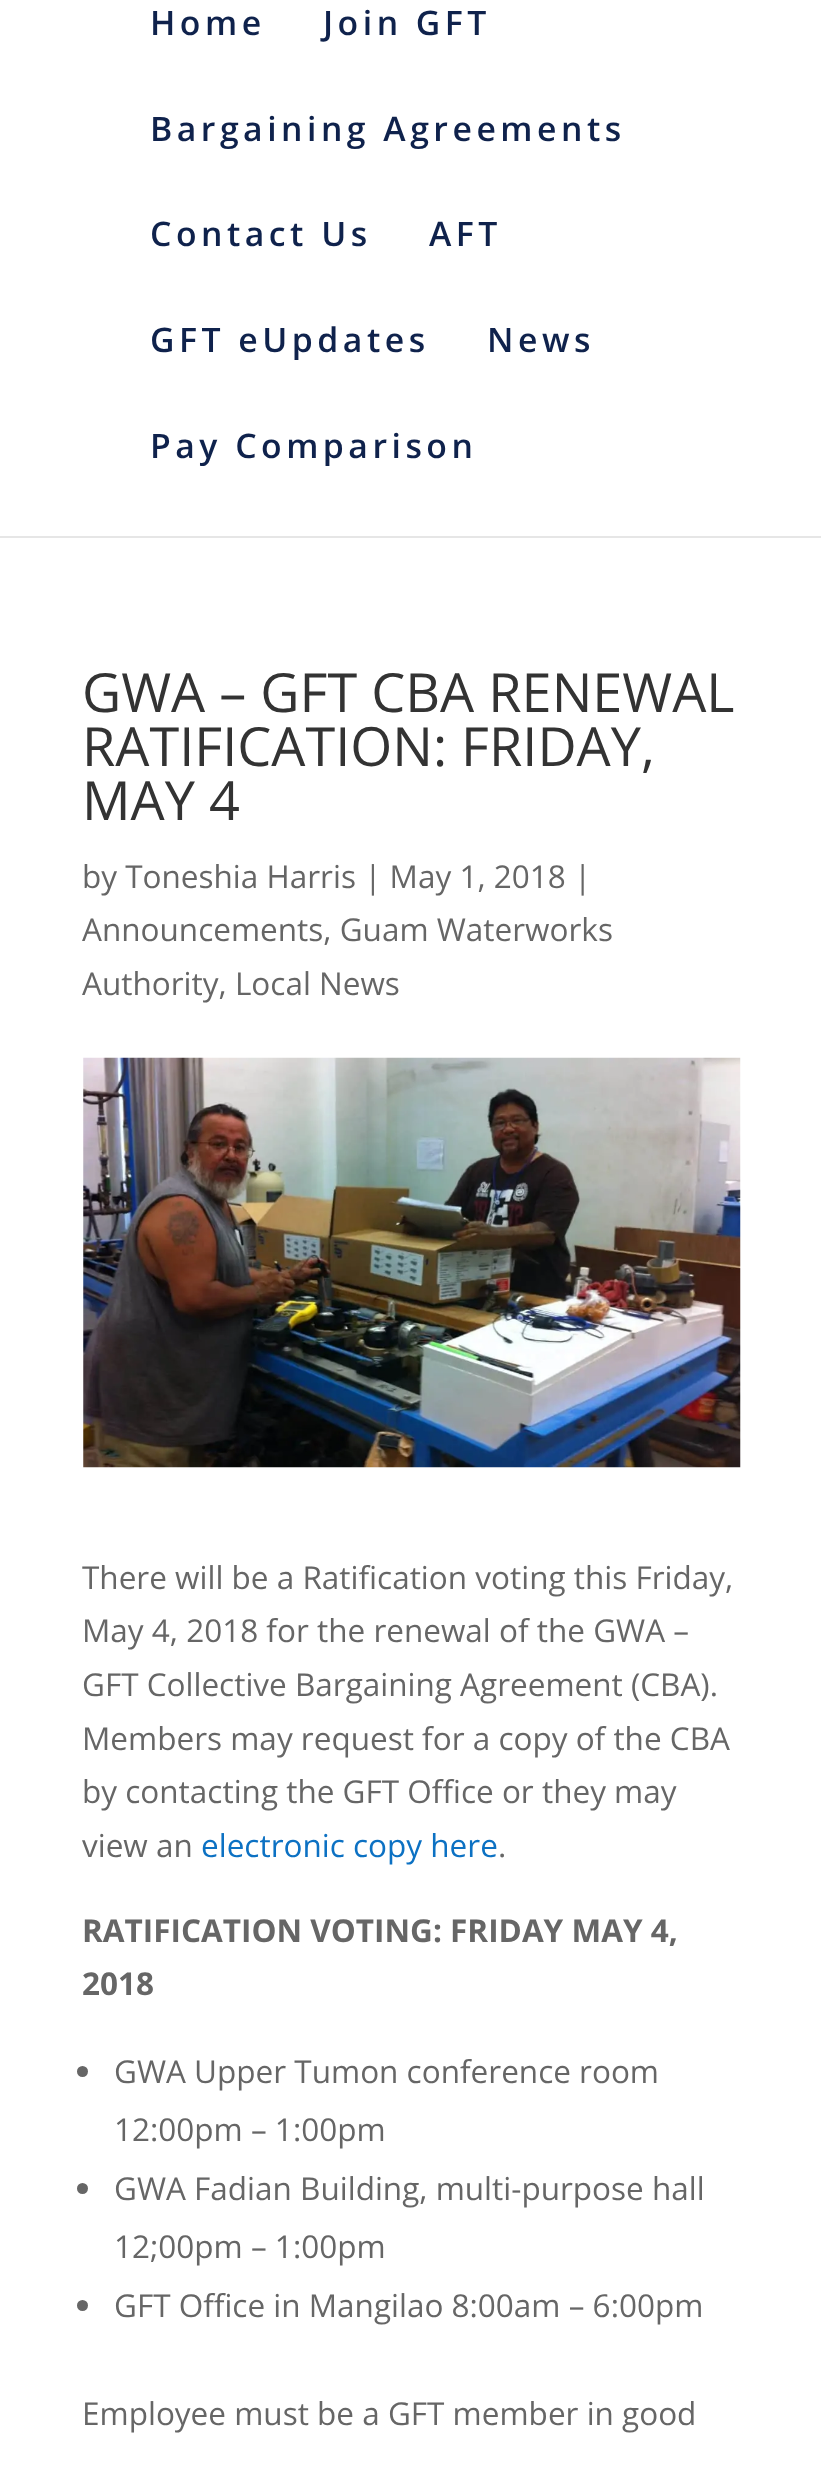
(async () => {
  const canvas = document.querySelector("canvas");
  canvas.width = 821;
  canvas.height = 2466;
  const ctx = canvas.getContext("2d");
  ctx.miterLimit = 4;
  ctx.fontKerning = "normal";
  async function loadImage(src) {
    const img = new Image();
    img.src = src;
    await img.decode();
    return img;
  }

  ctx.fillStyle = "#ffffff";
  ctx.fillRect(0, 0, 821, 2466);
  ctx.fillStyle = "#e6e6e6";
  ctx.fillRect(0, 536, 821, 2);
  ctx.drawImage(await loadImage("img/1.png"), 83, 1057, 658, 411);
  ctx.fillStyle = "#666666";
  ctx.beginPath();
  ctx.arc(82.5, 2071.5, 5.5, 0, Math.PI * 2);
  ctx.fill();
  ctx.beginPath();
  ctx.arc(82.5, 2188.5, 5.5, 0, Math.PI * 2);
  ctx.fill();
  ctx.beginPath();
  ctx.arc(82.5, 2305.5, 5.5, 0, Math.PI * 2);
  ctx.fill();
  ctx.letterSpacing = "4.5px";
  ctx.font = "600 33.75px Open Sans";
  ctx.fillStyle = "#0f224c";
  for (const [text, x, y] of [
    ["Home", 150, 35],
    ["Join GFT", 323, 35],
    ["Bargaining Agreements", 150, 141],
    ["Contact Us", 150, 246],
    ["AFT", 429, 246],
    ["GFT eUpdates", 150, 352],
    ["News", 487, 352],
    ["Pay Comparison", 150, 458],
  ]) {
    ctx.fillText(text, x, y);
  }
  ctx.letterSpacing = "0px";
  ctx.font = "54px Open Sans";
  ctx.fillStyle = "#333333";
  for (const [text, x, y] of [
    ["GWA – GFT CBA RENEWAL", 82, 712],
    ["RATIFICATION: FRIDAY,", 82, 766],
    ["MAY 4", 82, 820],
  ]) {
    ctx.fillText(text, x, y);
  }
  ctx.font = "31.5px Open Sans";
  ctx.fillStyle = "#666666";
  for (const [text, x, y] of [
    ["by Toneshia Harris | May 1, 2018 |", 82, 888],
    ["Announcements, Guam Waterworks", 82, 941],
    ["Authority, Local News", 82, 995],
    ["There will be a Ratification voting this Friday,", 82, 1589],
    ["May 4, 2018 for the renewal of the GWA –", 82, 1642],
    ["GFT Collective Bargaining Agreement (CBA).", 82, 1696],
    ["Members may request for a copy of the CBA", 82, 1750],
    ["by contacting the GFT Office or they may", 82, 1803],
    ["view an", 82, 1857],
  ]) {
    ctx.fillText(text, x, y);
  }
  ctx.fillStyle = "#0c71c3";
  ctx.fillText("electronic copy here", 201, 1857);
  ctx.fillStyle = "#666666";
  ctx.fillText(".", 498, 1857);
  ctx.font = "bold 31.5px Open Sans";
  ctx.fillText("RATIFICATION VOTING: FRIDAY MAY 4,", 82, 1942);
  ctx.fillText("2018", 82, 1995);
  ctx.font = "31.5px Open Sans";
  for (const [text, x, y] of [
    ["GWA Upper Tumon conference room", 114, 2083],
    ["12:00pm – 1:00pm", 114, 2141],
    ["GWA Fadian Building, multi-purpose hall", 114, 2200],
    ["12;00pm – 1:00pm", 114, 2258],
    ["GFT Office in Mangilao 8:00am – 6:00pm", 114, 2317],
    ["Employee must be a GFT member in good", 82, 2425],
  ]) {
    ctx.fillText(text, x, y);
  }
})();
